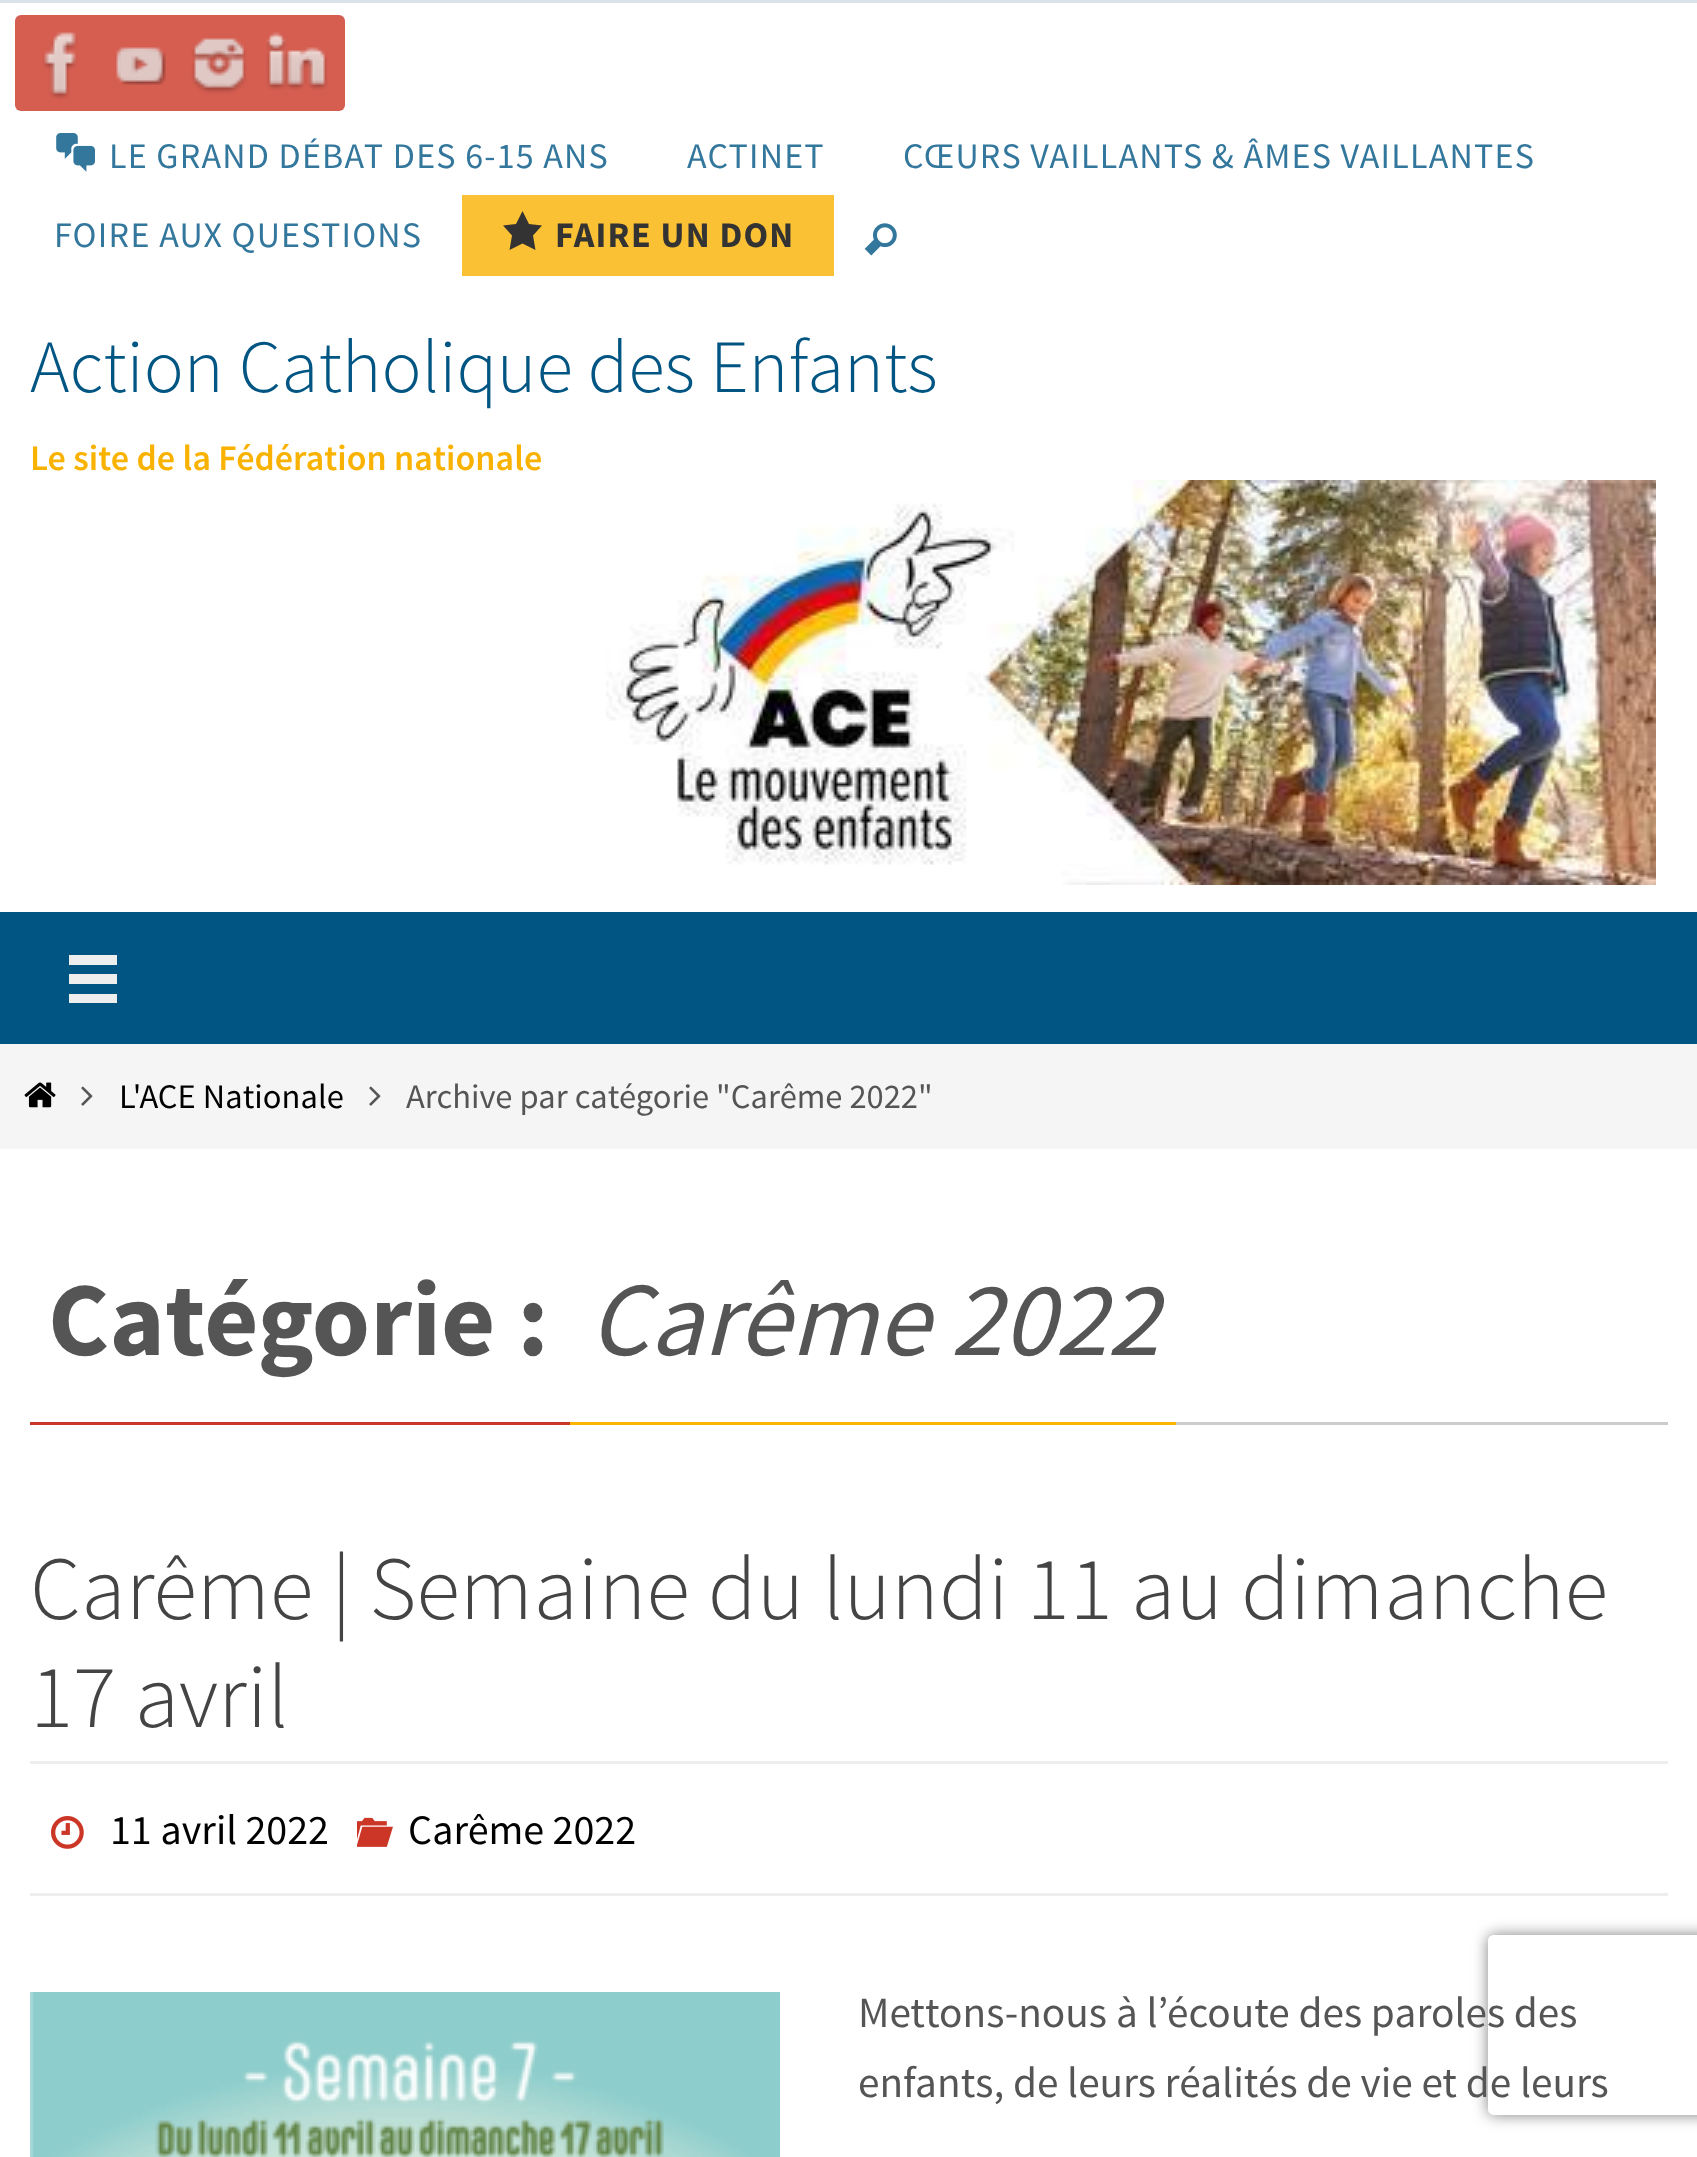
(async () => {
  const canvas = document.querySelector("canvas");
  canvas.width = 1697;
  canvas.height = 2157;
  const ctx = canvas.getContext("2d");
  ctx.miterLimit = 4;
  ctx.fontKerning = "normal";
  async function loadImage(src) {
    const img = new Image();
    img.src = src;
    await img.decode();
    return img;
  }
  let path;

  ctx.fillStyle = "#ffffff";
  ctx.fillRect(0, 0, 1697, 2157);
  ctx.fillStyle = "#d9e3e8";
  ctx.fillRect(0, 0, 1697, 3);
  ctx.fillStyle = "#d65e51";
  ctx.beginPath();
  ctx.roundRect(15, 15, 96, 96, 6);
  ctx.fill();
  ctx.drawImage(await loadImage("img/1.png"), 42, 32, 36, 67);
  ctx.beginPath();
  ctx.roundRect(93, 15, 96, 96, 6);
  ctx.fill();
  ctx.drawImage(await loadImage("img/2.png"), 116, 47, 50, 38);
  ctx.beginPath();
  ctx.roundRect(171, 15, 96, 96, 6);
  ctx.fill();
  ctx.drawImage(await loadImage("img/3.png"), 191, 38, 56, 56);
  ctx.beginPath();
  ctx.roundRect(249, 15, 96, 96, 6);
  ctx.fill();
  ctx.drawImage(await loadImage("img/4.png"), 266, 32, 62, 58);
  ctx.drawImage(await loadImage("img/5.png"), 56, 133, 39, 39);
  ctx.fillStyle = "#fbc134";
  ctx.fillRect(462, 195, 372, 81);
  ctx.fillStyle = "#333333";
  path = new Path2D("M522.5 211L529 224L542 225.5L533 235.5L535.5 250L522.5 243.5L509.5 250L512 235.5L503 225.5L516 224Z");
  ctx.fill(path);
  ctx.drawImage(await loadImage("img/6.png"), 864, 223, 33, 33);
  ctx.drawImage(await loadImage("img/7.png"), 606, 480, 1050, 405);
  ctx.fillStyle = "#005583";
  ctx.fillRect(0, 912, 1697, 132);
  ctx.fillStyle = "#eeeeee";
  path = new Path2D("M69 955V965H117V955ZM69 974V984H117V974ZM69 994V1003H117V994Z");
  ctx.fill(path);
  ctx.fillStyle = "#f5f5f5";
  ctx.fillRect(0, 1044, 1697, 105);
  ctx.drawImage(await loadImage("img/8.png"), 24, 1082, 32, 26);
  ctx.drawImage(await loadImage("img/9.png"), 81, 1086, 12, 20);
  ctx.drawImage(await loadImage("img/9.png"), 369, 1086, 12, 20);
  for (const [x, y, w, h, color] of [
    [1176, 1422, 492, 3, "#cccccc"],
    [30, 1422, 540, 3, "#cc3628"],
    [570, 1422, 606, 3, "#fab500"],
    [30, 1761, 1638, 3, "#eeeeee"],
    [30, 1893, 1638, 3, "#eeeeee"],
  ]) {
    ctx.fillStyle = color;
    ctx.fillRect(x, y, w, h);
  }
  ctx.drawImage(await loadImage("img/10.png"), 51, 1816, 33, 33);
  ctx.drawImage(await loadImage("img/11.png"), 357, 1817, 36, 30);
  ctx.drawImage(await loadImage("img/12.png"), 30, 1992, 750, 165);
  ctx.save();
  path = new Path2D("M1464 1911H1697V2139H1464ZM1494 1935H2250C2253.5 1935 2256 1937.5 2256 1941V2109C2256 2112.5 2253.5 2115 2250 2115H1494C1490.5 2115 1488 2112.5 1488 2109V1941C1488 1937.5 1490.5 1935 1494 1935Z");
  ctx.clip(path, "evenodd");
  ctx.fillStyle = "#808080";
  ctx.filter = "blur(7.5px)";
  ctx.beginPath();
  ctx.roundRect(1488, 1935, 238, 180, 6);
  ctx.fill();
  ctx.filter = "none";
  ctx.restore();
  ctx.letterSpacing = "1.2px";
  ctx.font = "36px Source Sans Pro";
  ctx.fillStyle = "#33779c";
  for (const [text, x, y] of [
    ["LE GRAND DÉBAT DES 6-15 ANS", 109, 168],
    ["ACTINET", 687, 168],
    ["CŒURS VAILLANTS & ÂMES VAILLANTES", 903, 168],
    ["FOIRE AUX QUESTIONS", 54, 247],
  ]) {
    ctx.fillText(text, x, y);
  }
  ctx.font = "bold 36px Source Sans Pro";
  ctx.fillStyle = "#333333";
  ctx.fillText("FAIRE UN DON", 555, 247);
  ctx.letterSpacing = "0px";
  ctx.font = "300 75px Source Sans Pro";
  ctx.fillStyle = "#005583";
  ctx.fillText("Action Catholique des Enfants", 30, 392);
  ctx.font = "600 36px Source Sans Pro";
  ctx.fillStyle = "#fab201";
  ctx.fillText("Le site de la Fédération nationale", 30, 470);
  ctx.font = "34.5px Source Sans Pro";
  ctx.fillStyle = "#000000";
  ctx.fillText("L'ACE Nationale", 119, 1108);
  ctx.fillStyle = "#555555";
  ctx.fillText("Archive par catégorie \"Carême 2022\"", 406, 1108);
  ctx.font = "bold 105px Source Sans Pro";
  ctx.fillText("Catégorie :", 48, 1355);
  ctx.font = "italic 105px Source Sans Pro";
  ctx.fillText("Carême 2022", 589, 1355);
  ctx.font = "300 90px Source Sans Pro";
  ctx.fillStyle = "#444444";
  ctx.fillText("Carême | Semaine du lundi 11 au dimanche", 30, 1619);
  ctx.fillText("17 avril", 30, 1727);
  ctx.font = "42px Source Sans Pro";
  ctx.fillStyle = "#000000";
  ctx.fillText("11 avril 2022", 110, 1844);
  ctx.fillText("Carême 2022", 408, 1844);
  ctx.font = "43.25px Source Sans Pro";
  ctx.fillStyle = "#555555";
  ctx.fillText("Mettons-nous à l’écoute des paroles des", 858, 2027);
  ctx.fillText("enfants, de leurs réalités de vie et de leurs", 858, 2097);
})();
